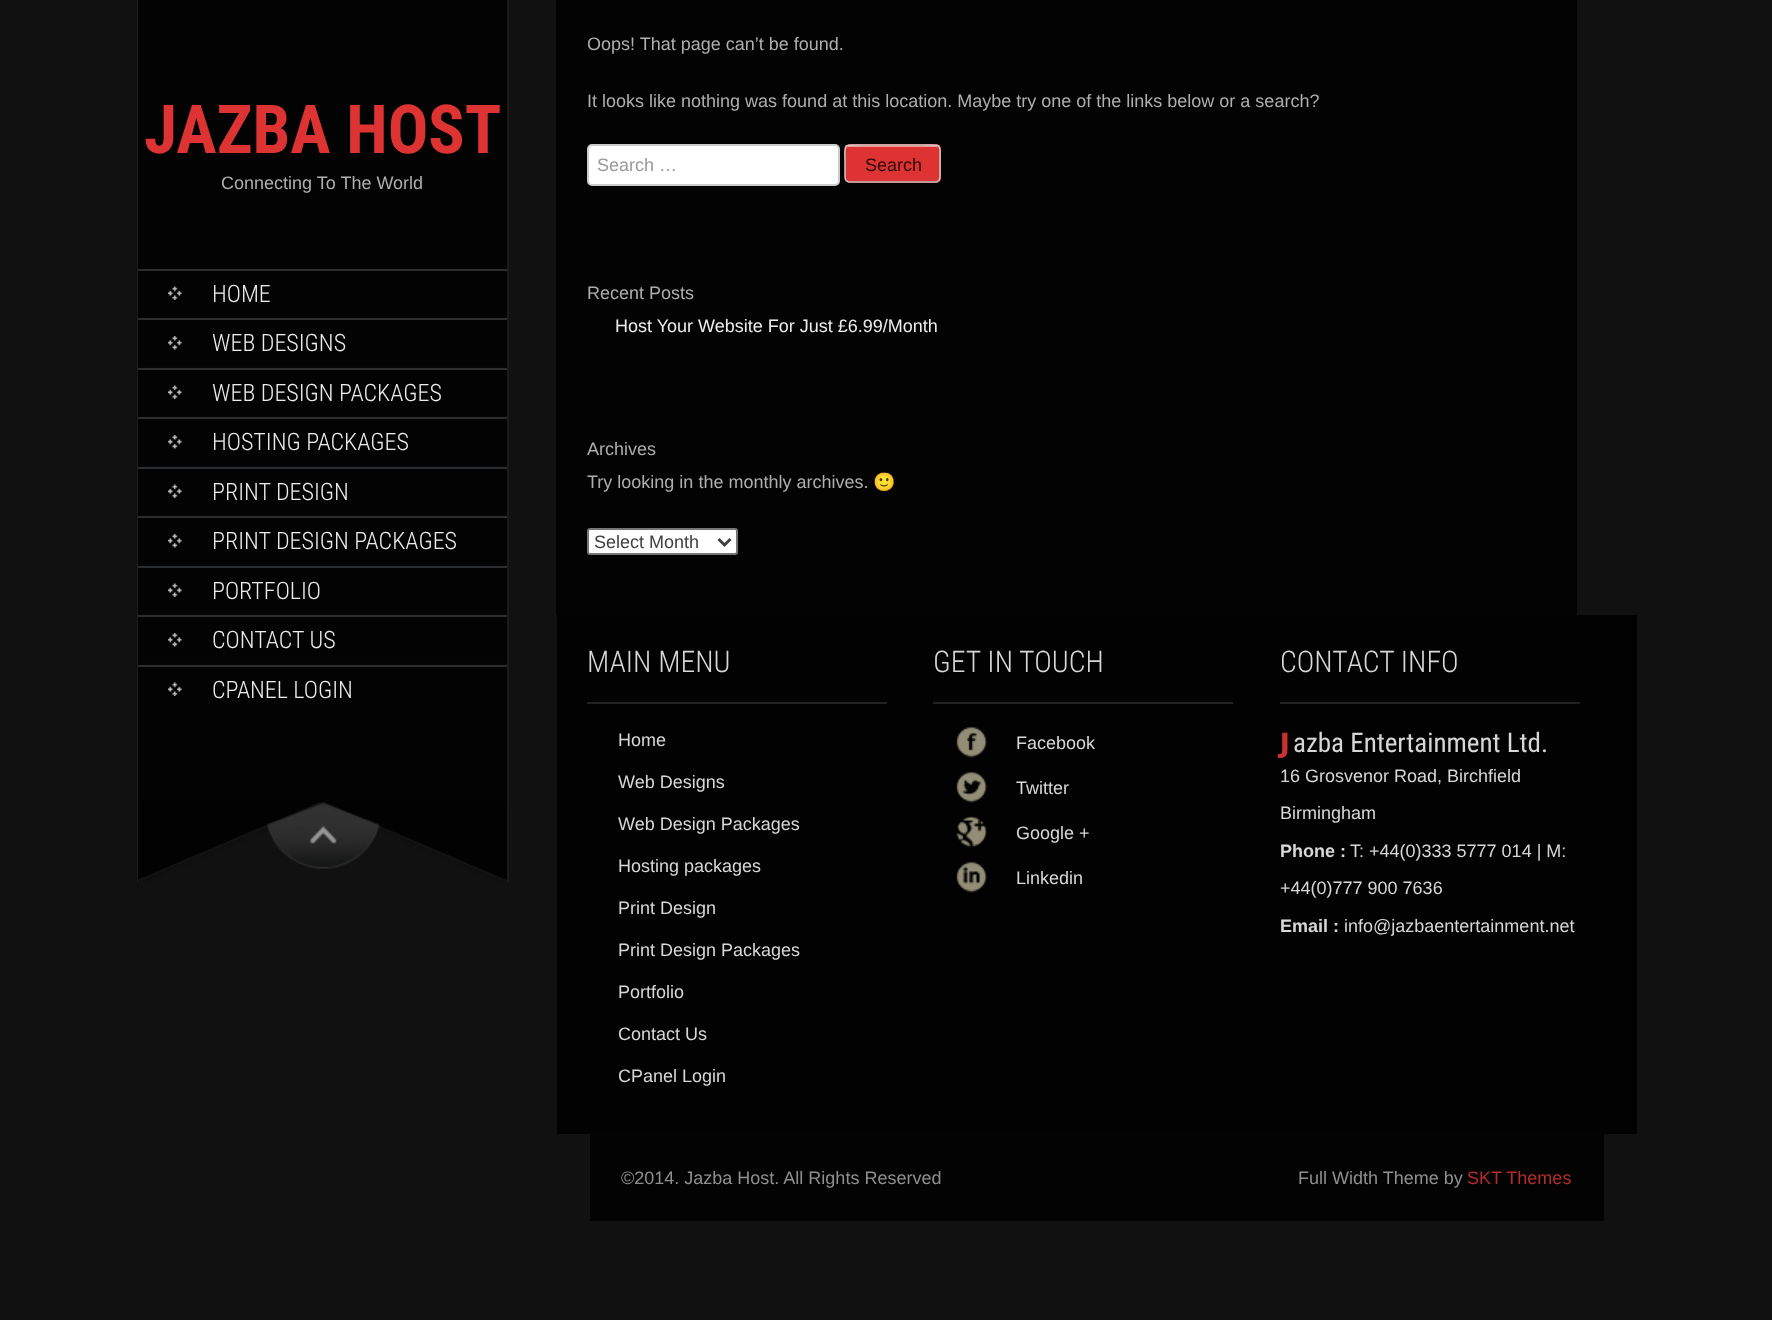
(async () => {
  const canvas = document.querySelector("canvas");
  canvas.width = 1772;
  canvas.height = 1320;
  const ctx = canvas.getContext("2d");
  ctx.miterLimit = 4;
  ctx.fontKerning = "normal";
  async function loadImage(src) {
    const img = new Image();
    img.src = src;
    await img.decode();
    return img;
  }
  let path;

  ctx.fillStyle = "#111111";
  ctx.fillRect(0, 0, 1772, 1320);
  for (const [x, y, w, h, color] of [
    [139, 271, 368, 532, "#030303"],
    [139, 0, 368, 269, "#030303"],
    [507, 0, 2, 882, "#1b1b1b"],
    [137, 0, 2, 882, "#1b1b1b"],
    [138, 0, 1, 803, "#040404"],
    [138, 269, 369, 2, "#2c2d2e"],
    [138, 317, 369, 1, "#040506"],
  ]) {
    ctx.fillStyle = color;
    ctx.fillRect(x, y, w, h);
  }
  ctx.drawImage(await loadImage("img/1.png"), 168, 286, 14, 14);
  ctx.fillStyle = "#2c2d2e";
  ctx.fillRect(138, 318, 369, 2);
  ctx.fillStyle = "#040506";
  ctx.fillRect(138, 366, 369, 2);
  ctx.drawImage(await loadImage("img/2.png"), 168, 336, 14, 14);
  ctx.fillStyle = "#2c2d2e";
  ctx.fillRect(138, 368, 369, 2);
  ctx.fillStyle = "#040506";
  ctx.fillRect(138, 416, 369, 1);
  ctx.drawImage(await loadImage("img/1.png"), 168, 385, 14, 14);
  ctx.fillStyle = "#2c2d2e";
  ctx.fillRect(138, 417, 369, 2);
  ctx.fillStyle = "#040506";
  ctx.fillRect(138, 465, 369, 2);
  ctx.drawImage(await loadImage("img/2.png"), 168, 435, 14, 14);
  ctx.fillStyle = "#2c2d2e";
  ctx.fillRect(138, 467, 369, 2);
  ctx.fillStyle = "#040506";
  ctx.fillRect(138, 515, 369, 1);
  ctx.drawImage(await loadImage("img/1.png"), 168, 484, 14, 14);
  ctx.fillStyle = "#2c2d2e";
  ctx.fillRect(138, 516, 369, 2);
  ctx.fillStyle = "#040506";
  ctx.fillRect(138, 564, 369, 2);
  ctx.drawImage(await loadImage("img/2.png"), 168, 534, 14, 14);
  ctx.fillStyle = "#2c2d2e";
  ctx.fillRect(138, 566, 369, 2);
  ctx.fillStyle = "#040506";
  ctx.fillRect(138, 614, 369, 1);
  ctx.drawImage(await loadImage("img/1.png"), 168, 583, 14, 14);
  ctx.fillStyle = "#2c2d2e";
  ctx.fillRect(138, 615, 369, 2);
  ctx.fillStyle = "#040506";
  ctx.fillRect(138, 663, 369, 2);
  ctx.drawImage(await loadImage("img/2.png"), 168, 633, 14, 14);
  ctx.fillStyle = "#2c2d2e";
  ctx.fillRect(138, 665, 369, 2);
  ctx.drawImage(await loadImage("img/1.png"), 168, 682, 14, 14);
  ctx.drawImage(await loadImage("img/3.png"), 138, 802, 369, 80);
  ctx.drawImage(await loadImage("img/4.png"), 267, 802, 113, 67);
  ctx.fillStyle = "#030303";
  ctx.fillRect(556, 0, 1021, 615);
  ctx.fillStyle = "#ffffff";
  ctx.beginPath();
  ctx.roundRect(588, 145, 251, 40, 4);
  ctx.fill();
  ctx.strokeStyle = "#cccccc";
  ctx.lineWidth = 2;
  ctx.stroke();
  ctx.fillStyle = "#dd3333";
  ctx.beginPath();
  ctx.roundRect(845, 144, 96, 39, 5);
  ctx.fill();
  ctx.fillStyle = "#ee9999";
  path = new Path2D("M849 147H936C938 147 939 148 939 150C939 142 925 146 922 146H864C860 146 846 142 846 150C846 148 847 147 849 147Z");
  ctx.fill(path);
  path = new Path2D("M938.5 181L936.5 182H848.5L846.5 181");
  ctx.strokeStyle = "#bbbbbb";
  ctx.lineWidth = 1.5;
  ctx.stroke(path);
  path = new Path2D("M846.5 181C844.5 179.5 845 175.5 845 173.5V163.5C845 142 841.5 145 863.5 145H921.5C943.5 145 940 142 940 163.5V173.5C940 175.5 940.5 179.5 938.5 181");
  ctx.strokeStyle = "#cccccc";
  ctx.stroke(path);
  ctx.fillStyle = "#ffffff";
  ctx.beginPath();
  ctx.roundRect(588, 529, 149, 25, 2);
  ctx.fill();
  ctx.strokeStyle = "#767676";
  ctx.lineWidth = 2;
  ctx.stroke();
  path = new Path2D("M718.5 539L724.5 545L730.5 539");
  ctx.strokeStyle = "#404040";
  ctx.lineWidth = 3;
  ctx.stroke(path);
  for (const [x, y, w, h, color] of [
    [557, 615, 1080, 519, "#020202"],
    [587, 702, 300, 2, "#222223"],
    [933, 702, 300, 2, "#222223"],
  ]) {
    ctx.fillStyle = color;
    ctx.fillRect(x, y, w, h);
  }
  ctx.drawImage(await loadImage("img/5.png"), 956, 726, 31, 32);
  ctx.drawImage(await loadImage("img/6.png"), 956, 771, 31, 32);
  ctx.drawImage(await loadImage("img/7.png"), 956, 816, 31, 32);
  ctx.drawImage(await loadImage("img/8.png"), 956, 861, 31, 32);
  ctx.fillRect(1280, 702, 300, 2);
  ctx.fillStyle = "#030303";
  ctx.fillRect(590, 1134, 1014, 87);
  ctx.font = "bold 67.5px Roboto Condensed";
  ctx.fillStyle = "#dd3333";
  ctx.fillText("JAZBA HOST", 144, 153);
  ctx.font = "18px Liberation Sans";
  ctx.fillStyle = "#aeaeae";
  ctx.fillText("Connecting To The World", 221, 189);
  ctx.font = "300 24px Roboto Condensed";
  ctx.fillStyle = "#eeeded";
  for (const [text, x, y] of [
    ["HOME", 212, 302],
    ["WEB DESIGNS", 212, 351],
    ["WEB DESIGN PACKAGES", 212, 401],
    ["HOSTING PACKAGES", 212, 450],
    ["PRINT DESIGN", 212, 500],
    ["PRINT DESIGN PACKAGES", 212, 549],
    ["PORTFOLIO", 212, 599],
    ["CONTACT US", 212, 648],
    ["CPANEL LOGIN", 212, 698],
  ]) {
    ctx.fillText(text, x, y);
  }
  ctx.font = "18px Liberation Sans";
  ctx.fillStyle = "#aeaeae";
  ctx.fillText("Oops! That page can’t be found.", 587, 50);
  ctx.fillText("It looks like nothing was found at this location. Maybe try one of the links below or a search?", 587, 107);
  ctx.fillStyle = "#999999";
  ctx.fillText("Search …", 597, 171);
  ctx.fillStyle = "#2c0a0a";
  ctx.fillText("Search", 865, 171);
  ctx.fillStyle = "#aeaeae";
  ctx.fillText("Recent Posts", 587, 299);
  ctx.fillStyle = "#eeeded";
  ctx.fillText("Host Your Website For Just £6.99/Month", 615, 332);
  ctx.fillStyle = "#aeaeae";
  ctx.fillText("Archives", 587, 455);
  ctx.fillText("Try looking in the monthly archives.", 587, 488);
  ctx.font = "18px Noto Color Emoji";
  ctx.fillText("🙂", 873, 488);
  ctx.font = "18px Liberation Sans";
  ctx.fillStyle = "#404040";
  ctx.fillText("Select Month", 594, 548);
  ctx.font = "300 29.75px Roboto Condensed";
  ctx.fillStyle = "#d8d7d7";
  ctx.fillText("MAIN MENU", 587, 672);
  ctx.font = "18px Liberation Sans";
  for (const [text, x, y] of [
    ["Home", 618, 746],
    ["Web Designs", 618, 788],
    ["Web Design Packages", 618, 830],
    ["Hosting packages", 618, 872],
    ["Print Design", 618, 914],
    ["Print Design Packages", 618, 956],
    ["Portfolio", 618, 998],
    ["Contact Us", 618, 1040],
    ["CPanel Login", 618, 1082],
  ]) {
    ctx.fillText(text, x, y);
  }
  ctx.font = "300 29.75px Roboto Condensed";
  ctx.fillText("GET IN TOUCH", 933, 672);
  ctx.font = "18px Liberation Sans";
  for (const [text, x, y] of [
    ["Facebook", 1016, 749],
    ["Twitter", 1016, 794],
    ["Google +", 1016, 839],
    ["Linkedin", 1016, 884],
  ]) {
    ctx.fillText(text, x, y);
  }
  ctx.font = "300 29.75px Roboto Condensed";
  ctx.fillText("CONTACT INFO", 1280, 672);
  ctx.font = "900 27px Noto Sans";
  ctx.fillStyle = "#c93030";
  ctx.fillText("J", 1280, 752);
  ctx.font = "27px Roboto Condensed";
  ctx.fillStyle = "#d8d7d7";
  ctx.fillText("azba Entertainment Ltd.", 1293, 752);
  ctx.font = "18px Liberation Sans";
  ctx.fillText("16 Grosvenor Road, Birchfield", 1280, 782);
  ctx.fillText("Birmingham", 1280, 819);
  ctx.font = "bold 18px Liberation Sans";
  ctx.fillText("Phone :", 1280, 857);
  ctx.font = "18px Liberation Sans";
  ctx.fillText("T: +44(0)333 5777 014 | M:", 1350, 857);
  ctx.fillText("+44(0)777 900 7636", 1280, 894);
  ctx.font = "bold 18px Liberation Sans";
  ctx.fillText("Email :", 1280, 932);
  ctx.font = "18px Liberation Sans";
  ctx.fillText("info@jazbaentertainment.net", 1344, 932);
  ctx.fillStyle = "#8f8f8f";
  ctx.fillText("©2014. Jazba Host. All Rights Reserved", 621, 1184);
  ctx.fillText("Full Width Theme by", 1298, 1184);
  ctx.fillStyle = "#b42c2c";
  ctx.fillText("SKT Themes", 1467, 1184);
})();
